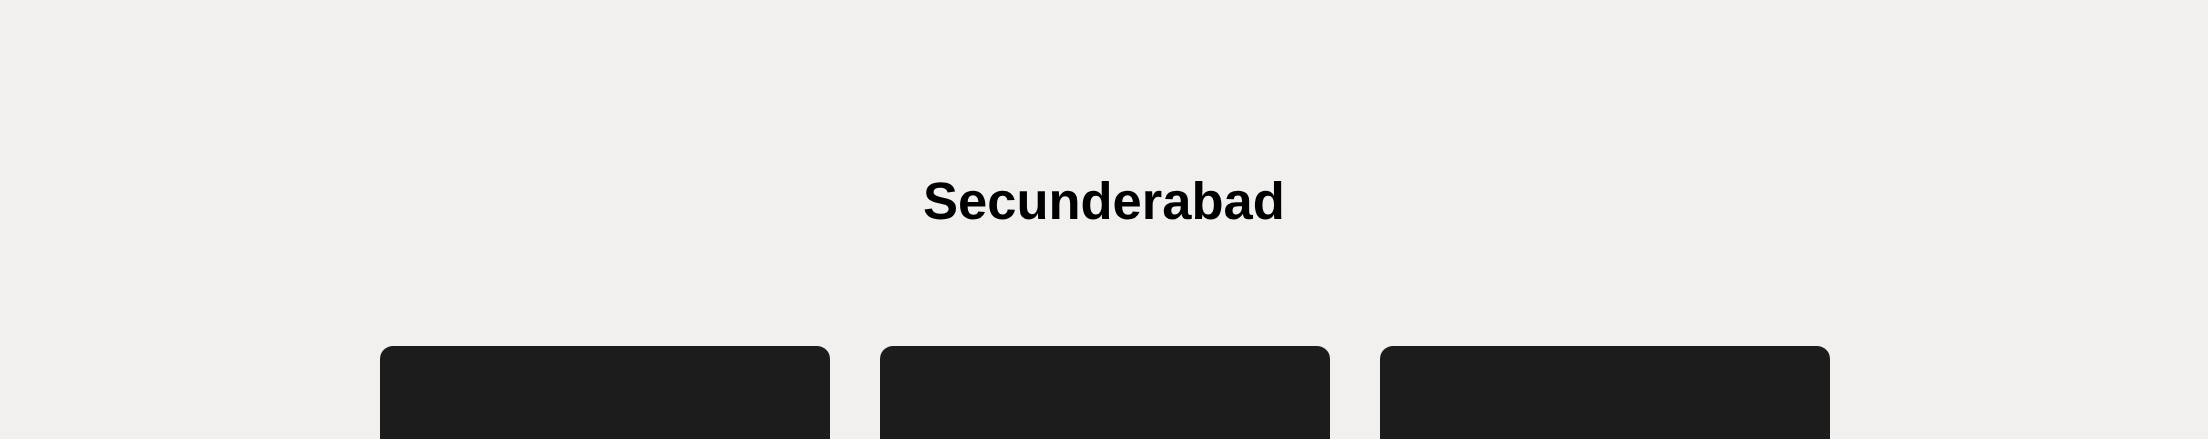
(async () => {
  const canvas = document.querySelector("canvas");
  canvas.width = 2208;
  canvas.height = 439;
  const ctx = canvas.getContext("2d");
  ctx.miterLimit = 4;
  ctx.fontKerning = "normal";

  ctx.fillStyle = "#f1f0ee";
  ctx.fillRect(0, 0, 2208, 439);
  ctx.fillStyle = "#1c1c1c";
  ctx.beginPath();
  ctx.roundRect(380, 346, 450, 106, 13);
  ctx.fill();
  ctx.beginPath();
  ctx.roundRect(880, 346, 450, 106, 13);
  ctx.fill();
  ctx.beginPath();
  ctx.roundRect(1380, 346, 450, 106, 13);
  ctx.fill();
  ctx.font = "bold 52.5px Liberation Sans";
  ctx.fillStyle = "#000000";
  ctx.fillText("Secunderabad", 923, 219);
})();
